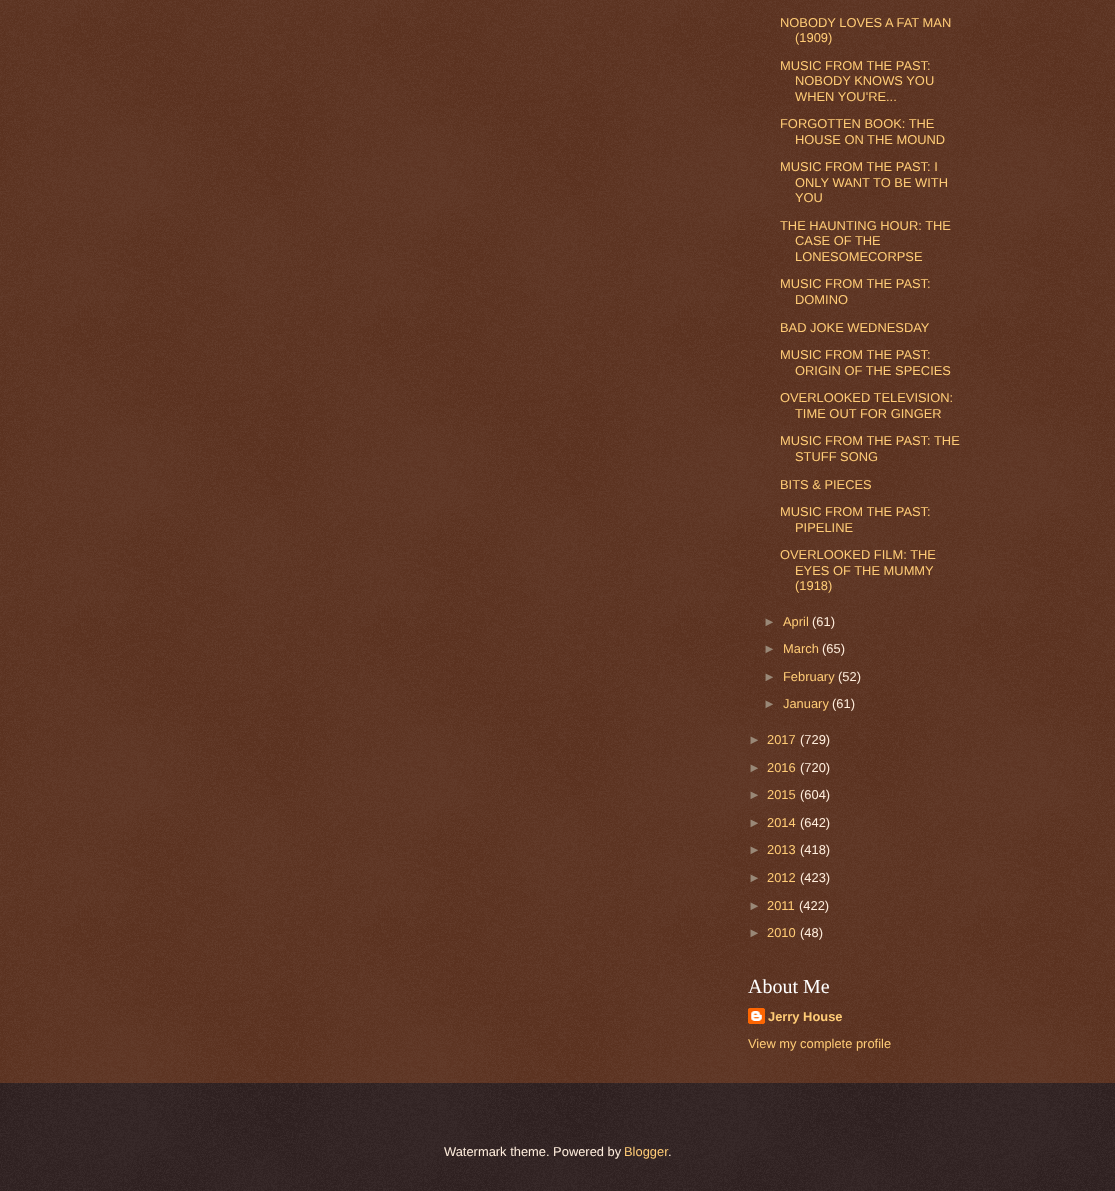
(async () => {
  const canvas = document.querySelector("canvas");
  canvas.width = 1115;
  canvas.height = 1191;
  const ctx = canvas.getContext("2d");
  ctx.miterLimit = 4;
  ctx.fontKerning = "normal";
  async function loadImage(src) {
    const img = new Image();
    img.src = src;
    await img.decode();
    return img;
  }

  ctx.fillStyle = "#441500";
  ctx.fillRect(0, 0, 1115, 1191);
  ctx.drawImage(await loadImage("img/1.png"), 0, 0, 1115, 1083);
  ctx.drawImage(await loadImage("img/2.png"), 748, 1008, 17, 16);
  ctx.fillStyle = "#110000";
  ctx.fillRect(0, 1083, 1115, 108);
  ctx.drawImage(await loadImage("img/3.png"), 0, 1083, 1115, 108);
  ctx.font = "12.9px Liberation Sans";
  ctx.fillStyle = "#ffcc77";
  for (const [text, x, y] of [
    ["NOBODY LOVES A FAT MAN", 780, 27],
    ["(1909)", 795, 42],
    ["MUSIC FROM THE PAST:", 780, 70],
    ["NOBODY KNOWS YOU", 795, 85],
    ["WHEN YOU'RE...", 795, 101],
    ["FORGOTTEN BOOK: THE", 780, 128],
    ["HOUSE ON THE MOUND", 795, 144],
    ["MUSIC FROM THE PAST: I", 780, 171],
    ["ONLY WANT TO BE WITH", 795, 187],
    ["YOU", 795, 202],
    ["THE HAUNTING HOUR: THE", 780, 230],
    ["CASE OF THE", 795, 245],
    ["LONESOMECORPSE", 795, 261],
    ["MUSIC FROM THE PAST:", 780, 288],
    ["DOMINO", 795, 304],
    ["BAD JOKE WEDNESDAY", 780, 332],
    ["MUSIC FROM THE PAST:", 780, 359],
    ["ORIGIN OF THE SPECIES", 795, 375],
    ["OVERLOOKED TELEVISION:", 780, 402],
    ["TIME OUT FOR GINGER", 795, 418],
    ["MUSIC FROM THE PAST: THE", 780, 445],
    ["STUFF SONG", 795, 461],
    ["BITS & PIECES", 780, 489],
    ["MUSIC FROM THE PAST:", 780, 516],
    ["PIPELINE", 795, 532],
    ["OVERLOOKED FILM: THE", 780, 559],
    ["EYES OF THE MUMMY", 795, 575],
    ["(1918)", 795, 590],
  ]) {
    ctx.fillText(text, x, y);
  }
  ctx.fillStyle = "#998877";
  ctx.fillText("►", 763, 626);
  ctx.fillStyle = "#ffcc77";
  ctx.fillText("April", 783, 626);
  ctx.fillStyle = "#ffeedd";
  ctx.fillText("(61)", 812, 626);
  ctx.fillStyle = "#998877";
  ctx.fillText("►", 763, 653);
  ctx.fillStyle = "#ffcc77";
  ctx.fillText("March", 783, 653);
  ctx.fillStyle = "#ffeedd";
  ctx.fillText("(65)", 822, 653);
  ctx.fillStyle = "#998877";
  ctx.fillText("►", 763, 681);
  ctx.fillStyle = "#ffcc77";
  ctx.fillText("February", 783, 681);
  ctx.fillStyle = "#ffeedd";
  ctx.fillText("(52)", 838, 681);
  ctx.fillStyle = "#998877";
  ctx.fillText("►", 763, 708);
  ctx.fillStyle = "#ffcc77";
  ctx.fillText("January", 783, 708);
  ctx.fillStyle = "#ffeedd";
  ctx.fillText("(61)", 832, 708);
  ctx.fillStyle = "#998877";
  ctx.fillText("►", 748, 744);
  ctx.fillStyle = "#ffcc77";
  ctx.fillText("2017", 767, 744);
  ctx.fillStyle = "#ffeedd";
  ctx.fillText("(729)", 800, 744);
  ctx.fillStyle = "#998877";
  ctx.fillText("►", 748, 772);
  ctx.fillStyle = "#ffcc77";
  ctx.fillText("2016", 767, 772);
  ctx.fillStyle = "#ffeedd";
  ctx.fillText("(720)", 800, 772);
  ctx.fillStyle = "#998877";
  ctx.fillText("►", 748, 799);
  ctx.fillStyle = "#ffcc77";
  ctx.fillText("2015", 767, 799);
  ctx.fillStyle = "#ffeedd";
  ctx.fillText("(604)", 800, 799);
  ctx.fillStyle = "#998877";
  ctx.fillText("►", 748, 827);
  ctx.fillStyle = "#ffcc77";
  ctx.fillText("2014", 767, 827);
  ctx.fillStyle = "#ffeedd";
  ctx.fillText("(642)", 800, 827);
  ctx.fillStyle = "#998877";
  ctx.fillText("►", 748, 854);
  ctx.fillStyle = "#ffcc77";
  ctx.fillText("2013", 767, 854);
  ctx.fillStyle = "#ffeedd";
  ctx.fillText("(418)", 800, 854);
  ctx.fillStyle = "#998877";
  ctx.fillText("►", 748, 882);
  ctx.fillStyle = "#ffcc77";
  ctx.fillText("2012", 767, 882);
  ctx.fillStyle = "#ffeedd";
  ctx.fillText("(423)", 800, 882);
  ctx.fillStyle = "#998877";
  ctx.fillText("►", 748, 910);
  ctx.fillStyle = "#ffcc77";
  ctx.fillText("2011", 767, 910);
  ctx.fillStyle = "#ffeedd";
  ctx.fillText("(422)", 799, 910);
  ctx.fillStyle = "#998877";
  ctx.fillText("►", 748, 937);
  ctx.fillStyle = "#ffcc77";
  ctx.fillText("2010", 767, 937);
  ctx.fillStyle = "#ffeedd";
  ctx.fillText("(48)", 800, 937);
  ctx.font = "20px Liberation Serif";
  ctx.fillStyle = "#ffffff";
  ctx.fillText("About Me", 748, 993);
  ctx.font = "bold 12.9px Liberation Sans";
  ctx.fillStyle = "#ffcc77";
  ctx.fillText("Jerry House", 768, 1021);
  ctx.font = "12.9px Liberation Sans";
  ctx.fillText("View my complete profile", 748, 1048);
  ctx.fillStyle = "#ffeedd";
  ctx.fillText("Watermark theme. Powered by", 444, 1156);
  ctx.fillStyle = "#ffcc77";
  ctx.fillText("Blogger", 624, 1156);
  ctx.fillStyle = "#ffeedd";
  ctx.fillText(".", 668, 1156);
})();
